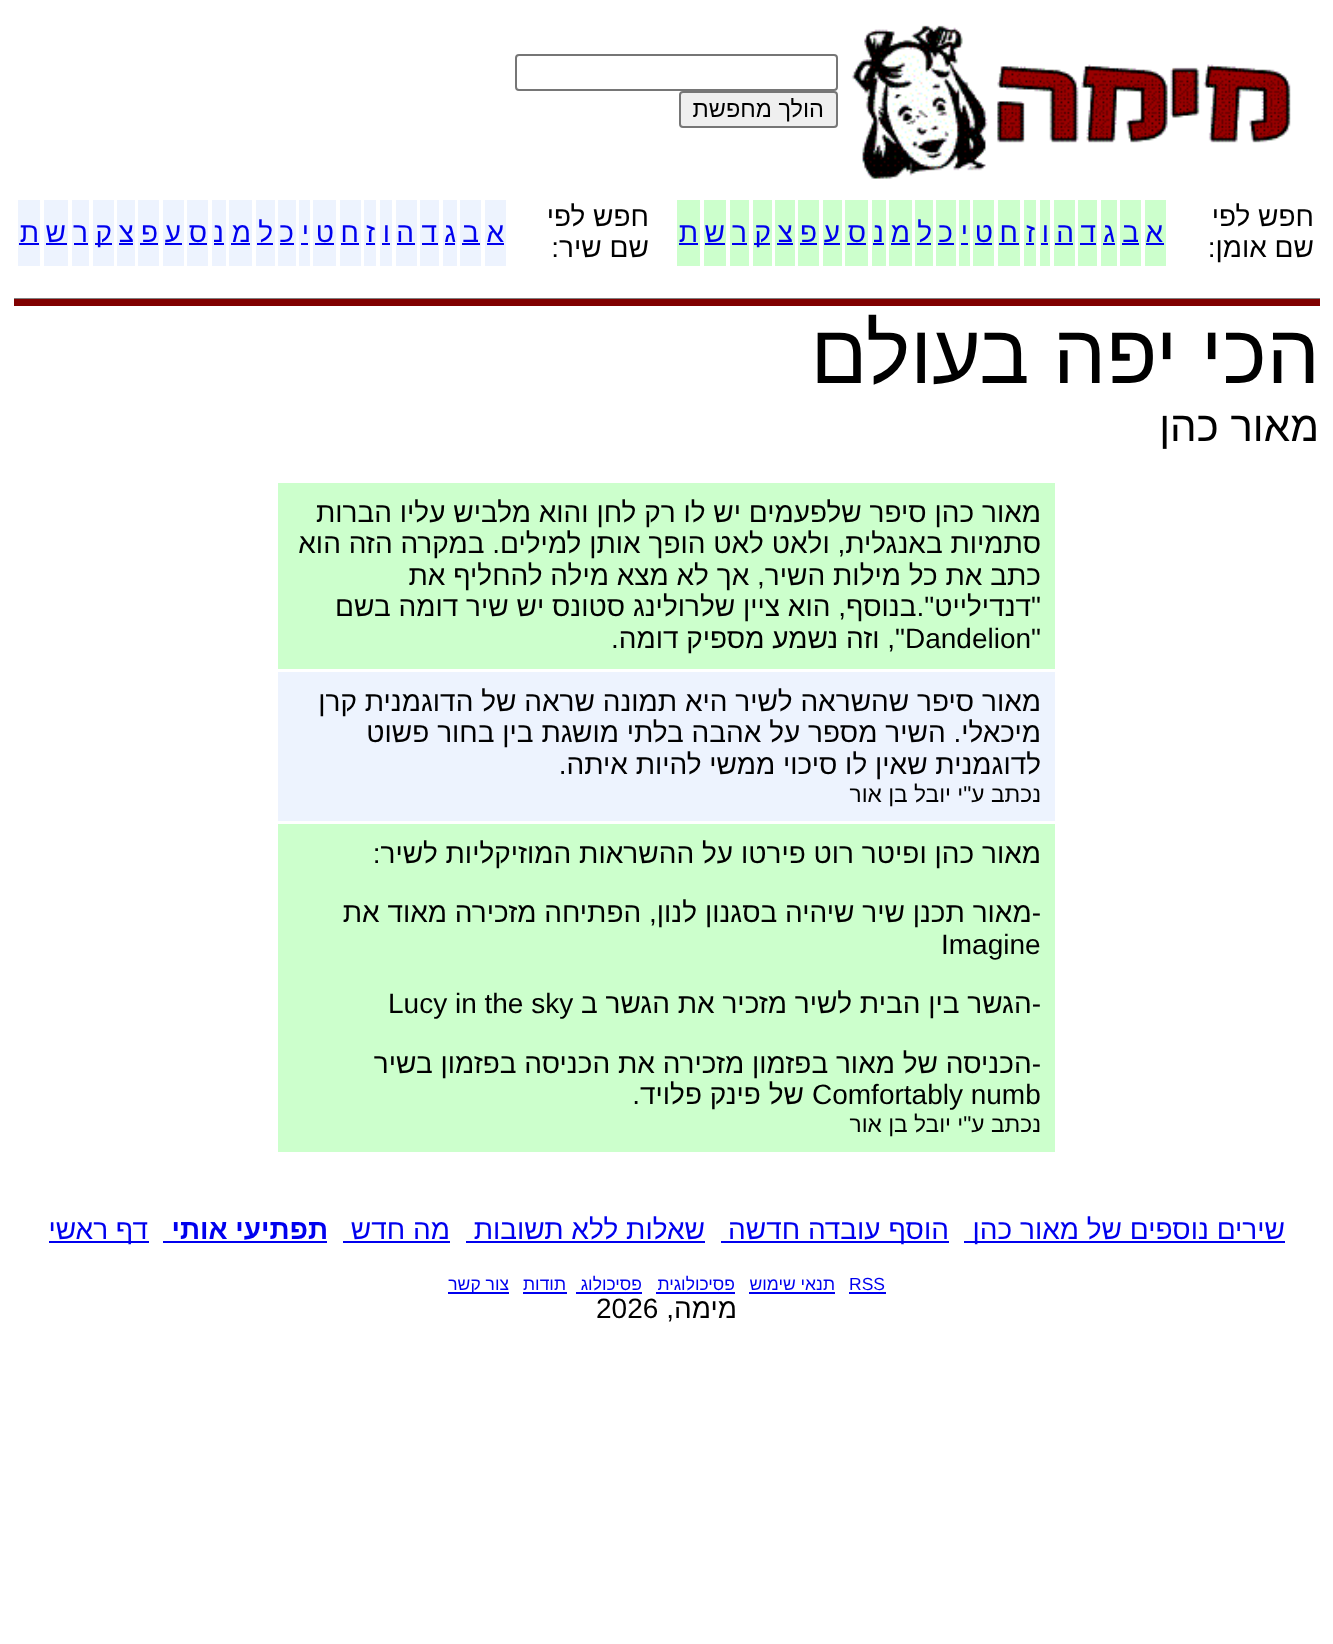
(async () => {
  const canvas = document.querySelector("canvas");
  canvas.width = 1333;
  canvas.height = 1644;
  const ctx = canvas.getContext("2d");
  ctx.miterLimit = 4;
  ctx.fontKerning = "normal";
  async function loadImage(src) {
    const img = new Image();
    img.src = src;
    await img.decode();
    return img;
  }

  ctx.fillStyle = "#ffffff";
  ctx.fillRect(0, 0, 1333, 1644);
  ctx.drawImage(await loadImage("img/1.png"), 851, 25, 440, 154);
  ctx.beginPath();
  ctx.roundRect(516, 55, 321, 35, 3);
  ctx.strokeStyle = "#767676";
  ctx.lineWidth = 2;
  ctx.stroke();
  ctx.fillStyle = "#efefef";
  ctx.beginPath();
  ctx.roundRect(680, 92, 157, 35, 3);
  ctx.fill();
  ctx.stroke();
  for (const [x, y, w, h, color] of [
    [1145, 200, 21, 66, "#ccffcc"],
    [1146, 243, 18, 2, "#0000ee"],
    [1120, 200, 21, 66, "#ccffcc"],
    [1122, 243, 17, 2, "#0000ee"],
    [1101, 200, 16, 66, "#ccffcc"],
    [1103, 243, 12, 2, "#0000ee"],
    [1078, 200, 19, 66, "#ccffcc"],
    [1080, 243, 16, 2, "#0000ee"],
    [1054, 200, 21, 66, "#ccffcc"],
    [1055, 243, 18, 2, "#0000ee"],
    [1040, 200, 10, 66, "#ccffcc"],
    [1041, 243, 7, 2, "#0000ee"],
    [1024, 200, 12, 66, "#ccffcc"],
    [1026, 243, 8, 2, "#0000ee"],
    [998, 200, 22, 66, "#ccffcc"],
    [999, 243, 20, 2, "#0000ee"],
    [973, 200, 21, 66, "#ccffcc"],
    [975, 243, 17, 2, "#0000ee"],
    [959, 200, 11, 66, "#ccffcc"],
    [961, 243, 7, 2, "#0000ee"],
    [936, 200, 20, 66, "#ccffcc"],
    [938, 243, 16, 2, "#0000ee"],
    [915, 200, 18, 66, "#ccffcc"],
    [917, 243, 14, 2, "#0000ee"],
    [889, 200, 23, 66, "#ccffcc"],
    [891, 243, 19, 2, "#0000ee"],
    [872, 200, 14, 66, "#ccffcc"],
    [873, 243, 11, 2, "#0000ee"],
    [845, 200, 23, 66, "#ccffcc"],
    [847, 243, 19, 2, "#0000ee"],
    [823, 200, 19, 66, "#ccffcc"],
    [824, 243, 16, 2, "#0000ee"],
    [798, 200, 21, 66, "#ccffcc"],
    [800, 243, 17, 2, "#0000ee"],
    [775, 200, 20, 66, "#ccffcc"],
    [777, 243, 16, 2, "#0000ee"],
    [753, 200, 19, 66, "#ccffcc"],
    [754, 243, 16, 2, "#0000ee"],
    [730, 200, 19, 66, "#ccffcc"],
    [732, 243, 15, 2, "#0000ee"],
    [704, 200, 22, 66, "#ccffcc"],
    [705, 243, 20, 2, "#0000ee"],
    [677, 200, 23, 66, "#ccffcc"],
    [679, 243, 19, 2, "#0000ee"],
    [485, 200, 21, 66, "#edf3fe"],
    [487, 243, 17, 2, "#0000ee"],
    [460, 200, 21, 66, "#edf3fe"],
    [462, 243, 18, 2, "#0000ee"],
    [443, 200, 14, 66, "#edf3fe"],
    [445, 243, 10, 2, "#0000ee"],
    [420, 200, 19, 66, "#edf3fe"],
    [422, 243, 16, 2, "#0000ee"],
    [396, 200, 21, 66, "#edf3fe"],
    [397, 243, 18, 2, "#0000ee"],
    [380, 200, 12, 66, "#edf3fe"],
    [382, 243, 8, 2, "#0000ee"],
    [364, 200, 12, 66, "#edf3fe"],
    [366, 243, 9, 2, "#0000ee"],
    [340, 200, 21, 66, "#edf3fe"],
    [341, 243, 18, 2, "#0000ee"],
    [313, 200, 23, 66, "#edf3fe"],
    [315, 243, 19, 2, "#0000ee"],
    [299, 200, 11, 66, "#edf3fe"],
    [301, 243, 7, 2, "#0000ee"],
    [278, 200, 18, 66, "#edf3fe"],
    [280, 243, 14, 2, "#0000ee"],
    [256, 200, 19, 66, "#edf3fe"],
    [257, 243, 16, 2, "#0000ee"],
    [229, 200, 23, 66, "#edf3fe"],
    [231, 243, 19, 2, "#0000ee"],
    [212, 200, 14, 66, "#edf3fe"],
    [214, 243, 10, 2, "#0000ee"],
    [187, 200, 21, 66, "#edf3fe"],
    [189, 243, 18, 2, "#0000ee"],
    [163, 200, 21, 66, "#edf3fe"],
    [165, 243, 17, 2, "#0000ee"],
    [138, 200, 21, 66, "#edf3fe"],
    [140, 243, 18, 2, "#0000ee"],
    [117, 200, 18, 66, "#edf3fe"],
    [119, 243, 14, 2, "#0000ee"],
    [93, 200, 21, 66, "#edf3fe"],
    [95, 243, 17, 2, "#0000ee"],
    [72, 200, 17, 66, "#edf3fe"],
    [74, 243, 14, 2, "#0000ee"],
    [44, 200, 24, 66, "#edf3fe"],
    [46, 243, 21, 2, "#0000ee"],
    [18, 200, 22, 66, "#edf3fe"],
    [19, 243, 20, 2, "#0000ee"],
    [14, 298, 1306, 1, "#808080"],
    [14, 299, 1306, 7, "#800000"],
    [278, 483, 777, 186, "#ccffcc"],
    [278, 672, 777, 149, "#edf3fe"],
    [278, 824, 777, 328, "#ccffcc"],
    [964, 1241, 321, 2, "#0000ee"],
    [721, 1241, 228, 2, "#0000ee"],
    [466, 1241, 239, 2, "#0000ee"],
    [343, 1241, 107, 2, "#0000ee"],
    [163, 1241, 164, 2, "#0000ee"],
    [49, 1241, 100, 2, "#0000ee"],
    [849, 1292, 37, 2, "#0000ee"],
    [749, 1292, 86, 2, "#0000ee"],
    [656, 1292, 79, 2, "#0000ee"],
    [576, 1292, 66, 2, "#0000ee"],
    [523, 1292, 44, 2, "#0000ee"],
    [448, 1292, 61, 2, "#0000ee"],
  ]) {
    ctx.fillStyle = color;
    ctx.fillRect(x, y, w, h);
  }
  ctx.direction = "rtl";
  ctx.font = "23.5px Liberation Sans";
  ctx.fillStyle = "#000000";
  ctx.fillText("הולך מחפשת", 824, 117);
  ctx.font = "28px Liberation Sans";
  ctx.fillText("חפש לפי", 1314, 226);
  ctx.fillText("שם אומן:", 1314, 257);
  ctx.fillStyle = "#0000ee";
  for (const [text, x, y] of [
    ["א", 1163, 242],
    ["ב", 1139, 242],
    ["ג", 1115, 242],
    ["ד", 1096, 242],
    ["ה", 1074, 242],
    ["ו", 1049, 242],
    ["ז", 1035, 242],
    ["ח", 1018, 242],
    ["ט", 993, 242],
    ["י", 968, 242],
    ["כ", 953, 242],
    ["ל", 932, 242],
    ["מ", 910, 242],
    ["נ", 884, 242],
    ["ס", 866, 242],
    ["ע", 840, 242],
    ["פ", 817, 242],
    ["צ", 793, 242],
    ["ק", 771, 242],
    ["ר", 747, 242],
    ["ש", 725, 242],
    ["ת", 698, 242],
  ]) {
    ctx.fillText(text, x, y);
  }
  ctx.fillStyle = "#000000";
  ctx.fillText("חפש לפי", 649, 226);
  ctx.fillText("שם שיר:", 649, 257);
  ctx.fillStyle = "#0000ee";
  for (const [text, x, y] of [
    ["א", 504, 242],
    ["ב", 479, 242],
    ["ג", 456, 242],
    ["ד", 437, 242],
    ["ה", 414, 242],
    ["ו", 390, 242],
    ["ז", 375, 242],
    ["ח", 359, 242],
    ["ט", 334, 242],
    ["י", 309, 242],
    ["כ", 294, 242],
    ["ל", 273, 242],
    ["מ", 251, 242],
    ["נ", 224, 242],
    ["ס", 207, 242],
    ["ע", 181, 242],
    ["פ", 158, 242],
    ["צ", 134, 242],
    ["ק", 112, 242],
    ["ר", 88, 242],
    ["ש", 66, 242],
    ["ת", 39, 242],
  ]) {
    ctx.fillText(text, x, y);
  }
  ctx.font = "84px Liberation Sans";
  ctx.fillStyle = "#000000";
  ctx.fillText("הכי יפה בעולם", 1320, 383);
  ctx.font = "42px Liberation Sans";
  ctx.fillText("מאור כהן", 1319, 441);
  ctx.font = "28px Liberation Sans";
  for (const [text, x, y] of [
    ["מאור כהן סיפר שלפעמים יש לו רק לחן והוא מלביש עליו הברות", 1041, 522],
    ["סתמיות באנגלית, ולאט לאט הופך אותן למילים. במקרה הזה הוא", 1041, 553],
    ["כתב את כל מילות השיר, אך לא מצא מילה להחליף את", 1041, 585],
    ["\"דנדילייט\".בנוסף, הוא ציין שלרולינג סטונס יש שיר דומה בשם", 1041, 616],
  ]) {
    ctx.fillText(text, x, y);
  }
  ctx.direction = "ltr";
  ctx.fillText("Dandelion\"", 905, 648);
  ctx.direction = "rtl";
  for (const [text, x, y] of [
    ["\", וזה נשמע מספיק דומה.", 905, 648],
    ["מאור סיפר שהשראה לשיר היא תמונה שראה של הדוגמנית קרן", 1041, 711],
    ["מיכאלי. השיר מספר על אהבה בלתי מושגת בין בחור פשוט", 1041, 742],
    ["לדוגמנית שאין לו סיכוי ממשי להיות איתה.", 1041, 774],
  ]) {
    ctx.fillText(text, x, y);
  }
  ctx.font = "22.75px Liberation Sans";
  ctx.fillText("נכתב ע\"י יובל בן אור", 1041, 802);
  ctx.font = "28px Liberation Sans";
  ctx.fillText("מאור כהן ופיטר רוט פירטו על ההשראות המוזיקליות לשיר:", 1041, 863);
  ctx.fillText("-מאור תכנן שיר שיהיה בסגנון לנון, הפתיחה מזכירה מאוד את", 1041, 922);
  ctx.direction = "ltr";
  ctx.fillText("Imagine", 941, 954);
  ctx.direction = "rtl";
  ctx.fillText("-הגשר בין הבית לשיר מזכיר את הגשר ב", 1041, 1013);
  ctx.direction = "ltr";
  ctx.fillText("Lucy in the sky", 388, 1013);
  ctx.direction = "rtl";
  ctx.fillText("-הכניסה של מאור בפזמון מזכירה את הכניסה בפזמון בשיר", 1041, 1073);
  ctx.direction = "ltr";
  ctx.fillText("Comfortably numb", 812, 1104);
  ctx.direction = "rtl";
  ctx.fillText("של פינק פלויד.", 804, 1104);
  ctx.font = "22.75px Liberation Sans";
  ctx.fillText("נכתב ע\"י יובל בן אור", 1041, 1132);
  ctx.font = "28px Liberation Sans";
  ctx.fillStyle = "#0000ee";
  for (const [text, x, y] of [
    ["שירים נוספים של מאור כהן", 1285, 1239],
    ["הוסף עובדה חדשה", 949, 1239],
    ["שאלות ללא תשובות", 705, 1239],
    ["מה חדש", 450, 1239],
  ]) {
    ctx.fillText(text, x, y);
  }
  ctx.font = "bold 28px Liberation Sans";
  ctx.fillText("תפתיעי אותי", 328, 1239);
  ctx.font = "28px Liberation Sans";
  ctx.fillText("דף ראשי", 148, 1239);
  ctx.direction = "ltr";
  ctx.font = "17.5px Liberation Sans";
  ctx.fillText("RSS", 849, 1290);
  ctx.direction = "rtl";
  for (const [text, x, y] of [
    ["תנאי שימוש", 835, 1290],
    ["פסיכולוגית", 735, 1290],
    ["פסיכולוג", 642, 1290],
    ["תודות", 566, 1290],
    ["צור קשר", 509, 1290],
  ]) {
    ctx.fillText(text, x, y);
  }
  ctx.font = "28px Liberation Sans";
  ctx.fillStyle = "#000000";
  ctx.fillText("מימה,", 737, 1318);
  ctx.direction = "ltr";
  ctx.fillText("2026", 596, 1318);
})();
